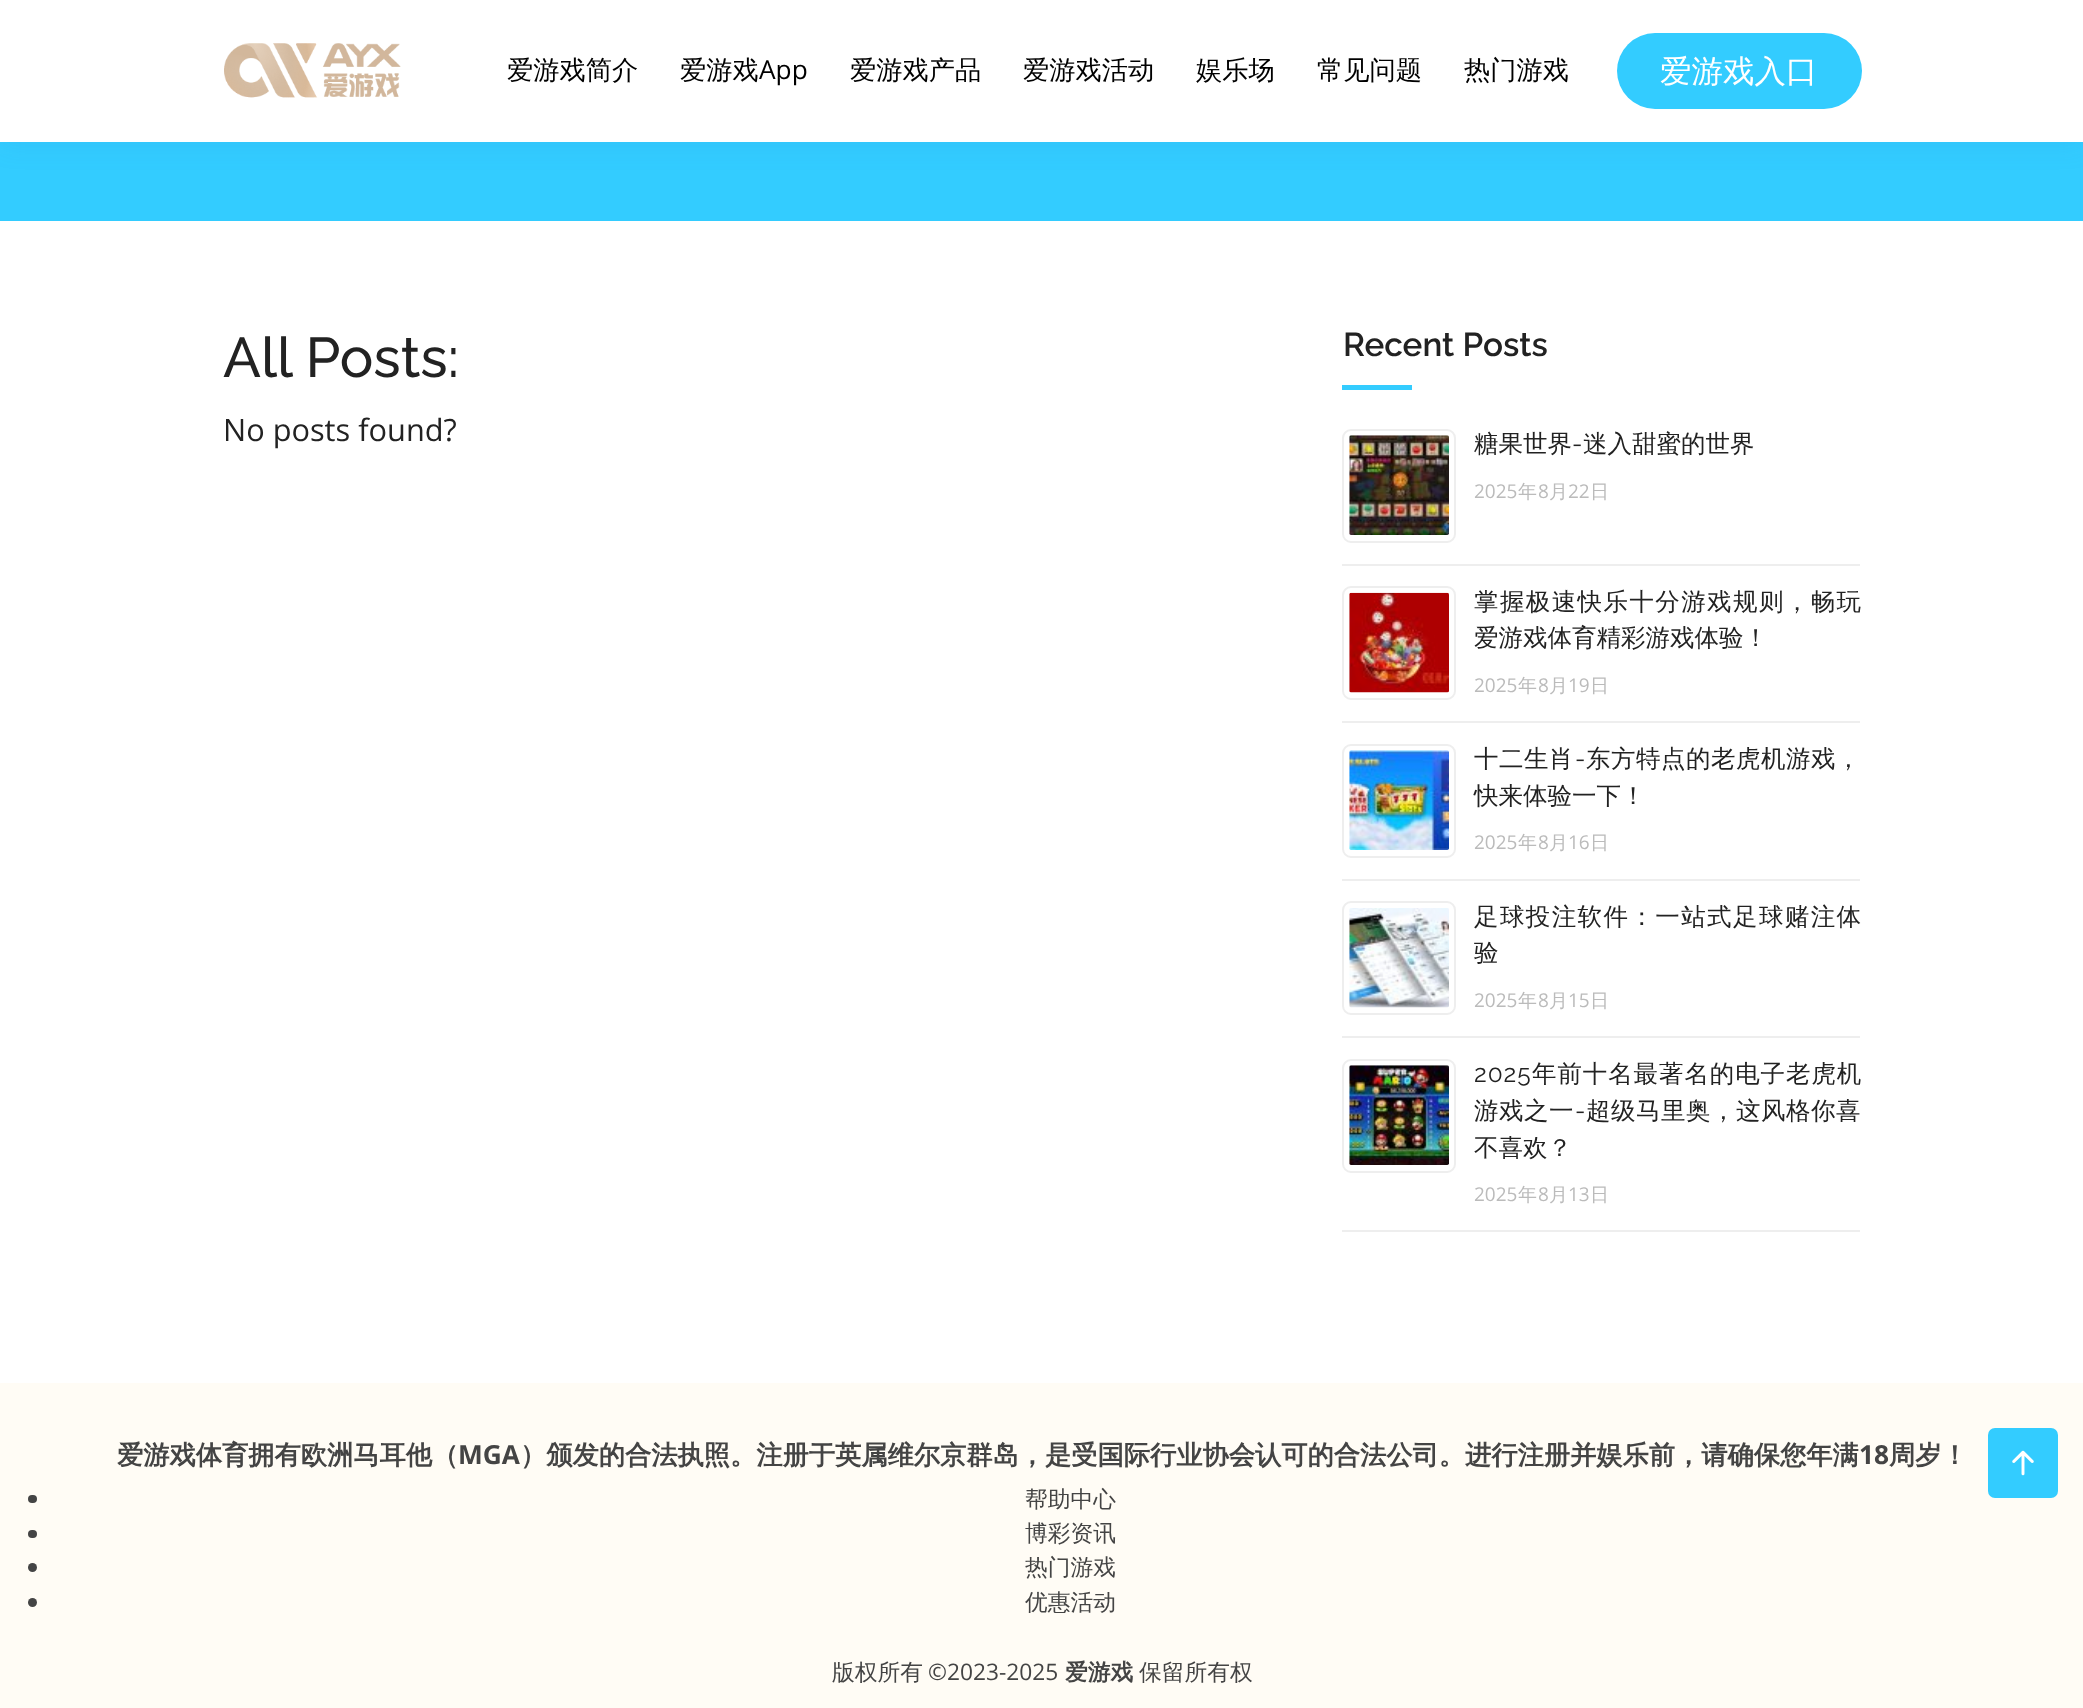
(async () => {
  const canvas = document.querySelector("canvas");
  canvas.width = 2083;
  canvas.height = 1708;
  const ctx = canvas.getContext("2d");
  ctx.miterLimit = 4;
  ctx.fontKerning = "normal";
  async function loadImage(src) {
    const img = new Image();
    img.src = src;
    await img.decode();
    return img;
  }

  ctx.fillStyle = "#ffffff";
  ctx.fillRect(0, 0, 2083, 1708);
  ctx.fillStyle = "#33ccff";
  ctx.fillRect(0, 142, 2083, 79);
  ctx.fillStyle = "rgba(25, 119, 204, 0.1)";
  ctx.filter = "blur(13px)";
  ctx.beginPath();
  ctx.rect(0, 4, 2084, 141);
  ctx.fill();
  ctx.filter = "none";
  ctx.fillStyle = "#ffffff";
  ctx.fillRect(0, 0, 2083, 142);
  ctx.drawImage(await loadImage("img/1.png"), 224, 43, 177, 55);
  ctx.fillStyle = "#33ccff";
  ctx.beginPath();
  ctx.roundRect(1617, 33, 245, 76, 38);
  ctx.fill();
  ctx.fillRect(1342, 385, 70, 5);
  ctx.fillStyle = "#eeeeee";
  ctx.fillRect(1342, 564, 518, 2);
  ctx.beginPath();
  ctx.roundRect(1343, 430, 112, 112, 8);
  ctx.strokeStyle = "#eeeeee";
  ctx.lineWidth = 2;
  ctx.stroke();
  ctx.drawImage(await loadImage("img/2.png"), 1349, 435, 100, 100);
  ctx.fillRect(1342, 721, 518, 2);
  ctx.beginPath();
  ctx.roundRect(1343, 587, 112, 112, 8);
  ctx.stroke();
  ctx.drawImage(await loadImage("img/3.png"), 1349, 592, 100, 101);
  ctx.fillRect(1342, 879, 518, 2);
  ctx.beginPath();
  ctx.roundRect(1343, 745, 112, 112, 8);
  ctx.stroke();
  ctx.drawImage(await loadImage("img/4.png"), 1349, 750, 100, 100);
  ctx.fillRect(1342, 1036, 518, 2);
  ctx.beginPath();
  ctx.roundRect(1343, 902, 112, 112, 8);
  ctx.stroke();
  ctx.drawImage(await loadImage("img/5.png"), 1349, 908, 100, 100);
  ctx.fillRect(1342, 1230, 518, 2);
  ctx.beginPath();
  ctx.roundRect(1343, 1060, 112, 112, 8);
  ctx.stroke();
  ctx.drawImage(await loadImage("img/6.png"), 1349, 1065, 100, 100);
  ctx.fillStyle = "#fffcf5";
  ctx.fillRect(0, 1383, 2083, 325);
  ctx.fillStyle = "#444444";
  ctx.beginPath();
  ctx.roundRect(28, 1495, 9, 8, 4);
  ctx.fill();
  ctx.beginPath();
  ctx.roundRect(28, 1530, 9, 8, 4);
  ctx.fill();
  ctx.beginPath();
  ctx.arc(32.5, 1567.5, 4.5, 0, Math.PI * 2);
  ctx.fill();
  ctx.beginPath();
  ctx.arc(32.5, 1602.5, 4.5, 0, Math.PI * 2);
  ctx.fill();
  ctx.fillStyle = "#33ccff";
  ctx.beginPath();
  ctx.roundRect(1988, 1428, 70, 70, 7);
  ctx.fill();
  ctx.drawImage(await loadImage("img/7.png"), 2012, 1450, 22, 26);
  ctx.font = "500 26.25px WenQuanYi Zen Hei";
  ctx.fillStyle = "#000000";
  ctx.fillText("爱游戏简介", 507, 79);
  ctx.fillText("爱游戏", 680, 79);
  ctx.font = "26.25px Open Sans";
  ctx.fillText("App", 759, 79);
  ctx.font = "500 26.25px WenQuanYi Zen Hei";
  for (const [text, x, y] of [
    ["爱游戏产品", 850, 79],
    ["爱游戏活动", 1023, 79],
    ["娱乐场", 1196, 79],
    ["常见问题", 1317, 79],
    ["热门游戏", 1464, 79],
  ]) {
    ctx.fillText(text, x, y);
  }
  ctx.font = "500 31.5px WenQuanYi Zen Hei";
  ctx.fillStyle = "#ffffff";
  ctx.fillText("爱游戏入口", 1660, 82);
  ctx.font = "500 56px Raleway";
  ctx.fillStyle = "#222222";
  ctx.fillText("All Posts:", 223, 377);
  ctx.font = "30.75px Open Sans";
  ctx.fillText("No posts found?", 223, 441);
  ctx.font = "600 33.25px Raleway";
  ctx.fillText("Recent Posts", 1343, 356);
  ctx.font = "500 24.5px WenQuanYi Zen Hei";
  ctx.fillText("糖果世界", 1474, 452);
  ctx.font = "24.5px Raleway";
  ctx.fillText("-", 1572, 452);
  ctx.font = "500 24.5px WenQuanYi Zen Hei";
  ctx.fillText("迷入甜蜜的世界", 1583, 452);
  ctx.font = "19px Open Sans";
  ctx.fillStyle = "#bbbbbb";
  ctx.fillText("2025", 1474, 498);
  ctx.font = "500 19px WenQuanYi Zen Hei";
  ctx.fillText("年", 1518, 498);
  ctx.font = "19px Open Sans";
  ctx.fillText("8", 1538, 498);
  ctx.font = "500 19px WenQuanYi Zen Hei";
  ctx.fillText("月", 1549, 498);
  ctx.font = "19px Open Sans";
  ctx.fillText("22", 1568, 498);
  ctx.font = "500 19px WenQuanYi Zen Hei";
  ctx.fillText("日", 1590, 498);
  ctx.letterSpacing = "1.4px";
  ctx.font = "500 24.5px WenQuanYi Zen Hei";
  ctx.fillStyle = "#222222";
  ctx.fillText("掌握极速快乐十分游戏规则，畅玩", 1474, 610);
  ctx.letterSpacing = "0px";
  ctx.fillText("爱游戏体育精彩游戏体验！", 1474, 646);
  ctx.font = "19px Open Sans";
  ctx.fillStyle = "#bbbbbb";
  ctx.fillText("2025", 1474, 692);
  ctx.font = "500 19px WenQuanYi Zen Hei";
  ctx.fillText("年", 1518, 692);
  ctx.font = "19px Open Sans";
  ctx.fillText("8", 1538, 692);
  ctx.font = "500 19px WenQuanYi Zen Hei";
  ctx.fillText("月", 1549, 692);
  ctx.font = "19px Open Sans";
  ctx.fillText("19", 1568, 692);
  ctx.font = "500 19px WenQuanYi Zen Hei";
  ctx.fillText("日", 1590, 692);
  ctx.letterSpacing = "0.5px";
  ctx.font = "500 24.5px WenQuanYi Zen Hei";
  ctx.fillStyle = "#222222";
  ctx.fillText("十二生肖", 1474, 767);
  ctx.font = "24.5px Raleway";
  ctx.fillText("-", 1575, 767);
  ctx.font = "500 24.5px WenQuanYi Zen Hei";
  ctx.fillText("东方特点的老虎机游戏，", 1586, 767);
  ctx.letterSpacing = "0px";
  ctx.fillText("快来体验一下！", 1474, 804);
  ctx.font = "19px Open Sans";
  ctx.fillStyle = "#bbbbbb";
  ctx.fillText("2025", 1474, 849);
  ctx.font = "500 19px WenQuanYi Zen Hei";
  ctx.fillText("年", 1518, 849);
  ctx.font = "19px Open Sans";
  ctx.fillText("8", 1538, 849);
  ctx.font = "500 19px WenQuanYi Zen Hei";
  ctx.fillText("月", 1549, 849);
  ctx.font = "19px Open Sans";
  ctx.fillText("16", 1568, 849);
  ctx.font = "500 19px WenQuanYi Zen Hei";
  ctx.fillText("日", 1590, 849);
  ctx.letterSpacing = "1.4px";
  ctx.font = "500 24.5px WenQuanYi Zen Hei";
  ctx.fillStyle = "#222222";
  ctx.fillText("足球投注软件：一站式足球赌注体", 1474, 925);
  ctx.letterSpacing = "0px";
  ctx.fillText("验", 1474, 961);
  ctx.font = "19px Open Sans";
  ctx.fillStyle = "#bbbbbb";
  ctx.fillText("2025", 1474, 1007);
  ctx.font = "500 19px WenQuanYi Zen Hei";
  ctx.fillText("年", 1518, 1007);
  ctx.font = "19px Open Sans";
  ctx.fillText("8", 1538, 1007);
  ctx.font = "500 19px WenQuanYi Zen Hei";
  ctx.fillText("月", 1549, 1007);
  ctx.font = "19px Open Sans";
  ctx.fillText("15", 1568, 1007);
  ctx.font = "500 19px WenQuanYi Zen Hei";
  ctx.fillText("日", 1590, 1007);
  ctx.letterSpacing = "0.9px";
  ctx.font = "24.5px Raleway";
  ctx.fillStyle = "#222222";
  ctx.fillText("2025", 1474, 1082);
  ctx.font = "500 24.5px WenQuanYi Zen Hei";
  ctx.fillText("年前十名最著名的电子老虎机", 1532, 1082);
  ctx.letterSpacing = "0.5px";
  ctx.fillText("游戏之一", 1474, 1119);
  ctx.font = "24.5px Raleway";
  ctx.fillText("-", 1575, 1119);
  ctx.font = "500 24.5px WenQuanYi Zen Hei";
  ctx.fillText("超级马里奥，这风格你喜", 1586, 1119);
  ctx.letterSpacing = "0px";
  ctx.fillText("不喜欢？", 1474, 1156);
  ctx.font = "19px Open Sans";
  ctx.fillStyle = "#bbbbbb";
  ctx.fillText("2025", 1474, 1201);
  ctx.font = "500 19px WenQuanYi Zen Hei";
  ctx.fillText("年", 1518, 1201);
  ctx.font = "19px Open Sans";
  ctx.fillText("8", 1538, 1201);
  ctx.font = "500 19px WenQuanYi Zen Hei";
  ctx.fillText("月", 1549, 1201);
  ctx.font = "19px Open Sans";
  ctx.fillText("13", 1568, 1201);
  ctx.font = "500 19px WenQuanYi Zen Hei";
  ctx.fillText("日", 1590, 1201);
  ctx.font = "bold 26.25px WenQuanYi Zen Hei";
  ctx.fillStyle = "#444444";
  ctx.fillText("爱游戏体育拥有欧洲马耳他（", 117, 1464);
  ctx.font = "bold 26.25px Open Sans";
  ctx.fillText("MGA", 458, 1464);
  ctx.font = "bold 26.25px WenQuanYi Zen Hei";
  ctx.fillText("）颁发的合法执照。注册于英属维尔京群岛，是受国际行业协会认可的合法公司。进行注册并娱乐前，请确保您年满", 520, 1464);
  ctx.font = "bold 26.25px Open Sans";
  ctx.fillText("18", 1859, 1464);
  ctx.font = "bold 26.25px WenQuanYi Zen Hei";
  ctx.fillText("周岁！", 1889, 1464);
  ctx.font = "500 22.75px WenQuanYi Zen Hei";
  for (const [text, x, y] of [
    ["帮助中心", 1025, 1507],
    ["博彩资讯", 1025, 1541],
    ["热门游戏", 1025, 1575],
    ["优惠活动", 1025, 1610],
    ["版权所有", 832, 1680],
  ]) {
    ctx.fillText(text, x, y);
  }
  ctx.font = "22.75px Open Sans";
  ctx.fillText("©2023-2025", 928, 1680);
  ctx.font = "bold 22.75px WenQuanYi Zen Hei";
  ctx.fillText("爱游戏", 1065, 1680);
  ctx.font = "500 22.75px WenQuanYi Zen Hei";
  ctx.fillText("保留所有权", 1139, 1680);
})();
